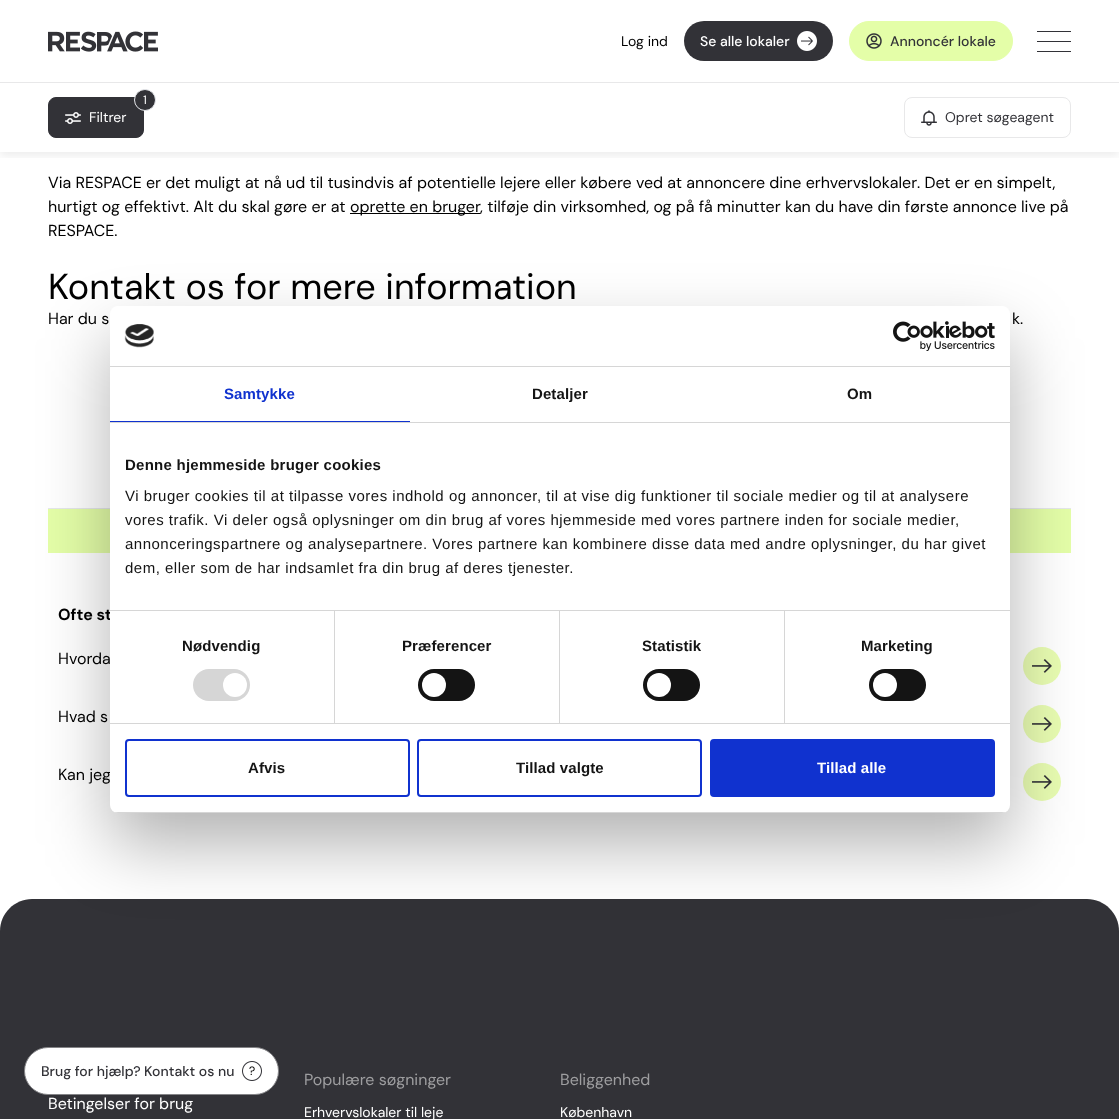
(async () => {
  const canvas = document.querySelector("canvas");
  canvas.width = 1119;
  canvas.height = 1119;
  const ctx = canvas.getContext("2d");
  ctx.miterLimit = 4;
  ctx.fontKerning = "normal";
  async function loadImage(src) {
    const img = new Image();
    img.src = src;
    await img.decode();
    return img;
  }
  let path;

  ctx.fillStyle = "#ffffff";
  ctx.fillRect(0, 0, 1119, 1119);
  ctx.drawImage(await loadImage("img/1.png"), 48, 31, 110, 21);
  ctx.fillStyle = "#323237";
  ctx.beginPath();
  ctx.roundRect(684, 21, 149, 40, 20);
  ctx.fill();
  ctx.drawImage(await loadImage("img/2.png"), 797, 31, 20, 20);
  ctx.fillStyle = "#e4fea8";
  ctx.beginPath();
  ctx.roundRect(849.5, 21.5, 163, 39, 19.5);
  ctx.fill();
  ctx.strokeStyle = "#e4fea8";
  ctx.stroke();
  ctx.drawImage(await loadImage("img/3.png"), 866, 33, 16, 16);
  for (const [x, y, w, h, color] of [
    [1037, 41, 34, 1, "#323237"],
    [1037, 31, 34, 1, "#323237"],
    [1037, 51, 34, 1, "#323237"],
    [0, 82, 1119, 1, "#e8e8e9"],
  ]) {
    ctx.fillStyle = color;
    ctx.fillRect(x, y, w, h);
  }
  ctx.save();
  ctx.beginPath();
  ctx.rect(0, 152, 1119, 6);
  ctx.clip();
  ctx.fillStyle = "rgba(0, 0, 0, 0.07)";
  ctx.filter = "blur(4px)";
  ctx.beginPath();
  ctx.rect(0, 87, 1119, 69);
  ctx.fill();
  ctx.filter = "none";
  ctx.restore();
  ctx.fillStyle = "#323237";
  ctx.beginPath();
  ctx.roundRect(48.5, 97.5, 95, 40, 7.5);
  ctx.fill();
  ctx.strokeStyle = "#323237";
  ctx.stroke();
  ctx.beginPath();
  ctx.arc(145, 100, 10.5, 0, Math.PI * 2);
  ctx.fill();
  ctx.strokeStyle = "#e5e7eb";
  ctx.stroke();
  ctx.drawImage(await loadImage("img/4.png"), 65, 112, 16, 12);
  ctx.beginPath();
  ctx.roundRect(904.5, 97.5, 166, 40, 7.5);
  ctx.strokeStyle = "#e8e8e9";
  ctx.stroke();
  ctx.drawImage(await loadImage("img/5.png"), 921, 110, 16, 16);
  for (const [x, y, w, h, color] of [
    [48, 508, 1023, 1, "#e5e7eb"],
    [350, 213, 130, 1, "#000000"],
    [48, 509, 1023, 44, "#e4fea8"],
  ]) {
    ctx.fillStyle = color;
    ctx.fillRect(x, y, w, h);
  }
  ctx.fillStyle = "#e9fdb2";
  ctx.beginPath();
  ctx.arc(1042, 666, 19, 0, Math.PI * 2);
  ctx.fill();
  ctx.drawImage(await loadImage("img/6.png"), 1032, 659, 20, 14);
  ctx.beginPath();
  ctx.arc(1042, 724, 19, 0, Math.PI * 2);
  ctx.fill();
  ctx.drawImage(await loadImage("img/6.png"), 1032, 717, 20, 14);
  ctx.beginPath();
  ctx.arc(1042, 782, 19, 0, Math.PI * 2);
  ctx.fill();
  ctx.drawImage(await loadImage("img/6.png"), 1032, 775, 20, 14);
  ctx.fillStyle = "#323237";
  path = new Path2D("M32 899H1087C1104.5 899 1119 913.5 1119 931V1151H0V931C0 913.5 14.5 899 32 899Z");
  ctx.fill(path);
  ctx.fillStyle = "#ffffff";
  ctx.beginPath();
  ctx.roundRect(24.5, 1047.5, 254, 47, 23.5);
  ctx.fill();
  ctx.strokeStyle = "#848487";
  ctx.stroke();
  ctx.drawImage(await loadImage("img/7.png"), 242, 1061, 20, 20);
  ctx.fillStyle = "rgba(0, 0, 0, 0.3)";
  ctx.filter = "blur(34px)";
  ctx.beginPath();
  ctx.roundRect(110, 338, 900, 507, 8);
  ctx.fill();
  ctx.filter = "none";
  ctx.font = "14px DM Sans";
  ctx.fillStyle = "#000000";
  ctx.fillText("Log ind", 621, 46);
  ctx.font = "500 14px DM Sans";
  ctx.fillStyle = "#ffffff";
  ctx.fillText("Se alle lokaler", 700, 46);
  ctx.fillStyle = "#323237";
  ctx.fillText("Annoncér lokale", 890, 46);
  ctx.font = "12px DM Sans";
  ctx.fillStyle = "#ffffff";
  ctx.fillText("1", 143, 104);
  ctx.font = "14px DM Sans";
  ctx.fillText("Filtrer", 89, 122);
  ctx.fillStyle = "#323237";
  ctx.fillText("Opret søgeagent", 945, 122);
  ctx.font = "16px DM Sans";
  ctx.fillStyle = "#000000";
  for (const [text, x, y] of [
    ["Via RESPACE er det muligt at nå ud til tusindvis af potentielle lejere eller købere ved at annoncere dine erhvervslokaler", 48, 188],
    [". Det er en simpelt,", 917, 188],
    ["hurtigt og effektivt. Alt du skal gøre er at", 48, 212],
    ["oprette en bruger", 350, 212],
    [", tilføje din virksomhed, og på få minutter kan du have din første annonce live på", 480, 212],
    ["RESPACE.", 48, 236],
  ]) {
    ctx.fillText(text, x, y);
  }
  ctx.font = "36px DM Sans";
  ctx.fillText("Kontakt os for mere information", 48, 299);
  ctx.font = "16px DM Sans";
  ctx.fillText("Har du s", 48, 324);
  ctx.fillText("k.", 1012, 324);
  ctx.font = "bold 16px DM Sans";
  ctx.fillText("Ofte st", 58, 620);
  ctx.font = "16px DM Sans";
  for (const [text, x, y] of [
    ["Hvorda", 58, 664],
    ["Hvad s", 58, 722],
    ["Kan jeg", 58, 780],
  ]) {
    ctx.fillText(text, x, y);
  }
  ctx.fillStyle = "#ffffff";
  ctx.fillText("Betingelser for brug", 48, 1109);
  ctx.fillStyle = "#9e9ea0";
  ctx.fillText("Populære søgninger", 304, 1085);
  ctx.font = "14px DM Sans";
  ctx.fillStyle = "#ffffff";
  ctx.fillText("Erhvervslokaler til leje", 304, 1117);
  ctx.font = "16px DM Sans";
  ctx.fillStyle = "#9e9ea0";
  ctx.fillText("Beliggenhed", 560, 1085);
  ctx.font = "14px DM Sans";
  ctx.fillStyle = "#ffffff";
  ctx.fillText("København", 560, 1117);
  ctx.font = "500 14px DM Sans";
  ctx.fillStyle = "#323237";
  ctx.fillText("Brug for hjælp? Kontakt os nu", 41, 1076);
  ctx.fillStyle = "#ffffff";
  ctx.beginPath();
  ctx.roundRect(110, 306, 900, 507, 8);
  ctx.fill();
  ctx.fillStyle = "#d6d6d6";
  ctx.fillRect(110, 366, 900, 1);
  ctx.drawImage(await loadImage("img/8.png"), 124, 324, 30, 24);
  ctx.drawImage(await loadImage("img/9.png"), 893, 321, 102, 30);
  ctx.fillRect(110, 422, 900, 1);
  ctx.fillStyle = "#1032cf";
  ctx.fillRect(110, 421, 300, 1);
  ctx.letterSpacing = "0.1px";
  ctx.font = "bold 15px Liberation Sans";
  ctx.fillText("Samtykke", 224, 399);
  ctx.fillStyle = "#141414";
  ctx.fillText("Detaljer", 532, 399);
  ctx.fillText("Om", 847, 399);
  ctx.fillStyle = "#d6d6d6";
  ctx.fillRect(110, 610, 900, 1);
  ctx.letterSpacing = "0.25px";
  ctx.fillStyle = "#141414";
  ctx.fillText("Denne hjemmeside bruger cookies", 125, 470);
  ctx.letterSpacing = "0.5px";
  ctx.font = "15px Liberation Sans";
  for (const [text, x, y] of [
    ["Vi bruger cookies til at tilpasse vores indhold og annoncer, til at vise dig funktioner til sociale medier og til at analysere", 125, 501],
    ["vores trafik. Vi deler også oplysninger om din brug af vores hjemmeside med vores partnere inden for sociale medier,", 125, 525],
    ["annonceringspartnere og analysepartnere. Vores partnere kan kombinere disse data med andre oplysninger, du har givet", 125, 549],
    ["dem, eller som de har indsamlet fra din brug af deres tjenester.", 125, 573],
  ]) {
    ctx.fillText(text, x, y);
  }
  ctx.fillStyle = "#d6d6d6";
  ctx.fillRect(110, 723, 900, 1);
  ctx.fillRect(334, 611, 1, 112);
  ctx.letterSpacing = "0.1px";
  ctx.font = "bold 15px Liberation Sans";
  ctx.fillStyle = "#141414";
  ctx.fillText("Nødvendig", 182, 651);
  ctx.fillStyle = "#d6d6d6";
  ctx.beginPath();
  ctx.roundRect(193, 669, 57, 32, 16);
  ctx.fill();
  ctx.fillStyle = "#ffffff";
  ctx.beginPath();
  ctx.arc(235, 685, 12, 0, Math.PI * 2);
  ctx.fill();
  ctx.fillStyle = "#d6d6d6";
  ctx.fillRect(559, 611, 1, 112);
  ctx.fillStyle = "#141414";
  ctx.fillText("Præferencer", 402, 651);
  ctx.beginPath();
  ctx.roundRect(418, 669, 57, 32, 16);
  ctx.fill();
  ctx.fillStyle = "#ffffff";
  ctx.beginPath();
  ctx.arc(434, 685, 12, 0, Math.PI * 2);
  ctx.fill();
  ctx.fillStyle = "#d6d6d6";
  ctx.fillRect(784, 611, 1, 112);
  ctx.fillStyle = "#141414";
  ctx.fillText("Statistik", 642, 651);
  ctx.beginPath();
  ctx.roundRect(643, 669, 57, 32, 16);
  ctx.fill();
  ctx.fillStyle = "#ffffff";
  ctx.beginPath();
  ctx.arc(659, 685, 12, 0, Math.PI * 2);
  ctx.fill();
  ctx.fillStyle = "#141414";
  ctx.fillText("Marketing", 861, 651);
  ctx.beginPath();
  ctx.roundRect(869, 669, 57, 32, 16);
  ctx.fill();
  ctx.fillStyle = "#ffffff";
  ctx.beginPath();
  ctx.arc(885, 685, 12, 0, Math.PI * 2);
  ctx.fill();
  ctx.save();
  ctx.beginPath();
  ctx.roundRect(110, 306, 900, 507, 8);
  ctx.clip();
  ctx.fillStyle = "#d6d6d6";
  ctx.fillRect(110, 812, 900, 1);
  ctx.restore();
  ctx.beginPath();
  ctx.roundRect(126, 740, 283, 56, 3);
  ctx.strokeStyle = "#1032cf";
  ctx.lineWidth = 2;
  ctx.stroke();
  ctx.fillStyle = "#141414";
  ctx.fillText("Afvis", 248, 773);
  ctx.beginPath();
  ctx.roundRect(418, 740, 283, 56, 3);
  ctx.stroke();
  ctx.fillText("Tillad valgte", 516, 773);
  ctx.fillStyle = "#1032cf";
  ctx.beginPath();
  ctx.roundRect(711, 740, 283, 56, 3);
  ctx.fill();
  ctx.stroke();
  ctx.fillStyle = "#ffffff";
  ctx.fillText("Tillad alle", 817, 773);
})();
